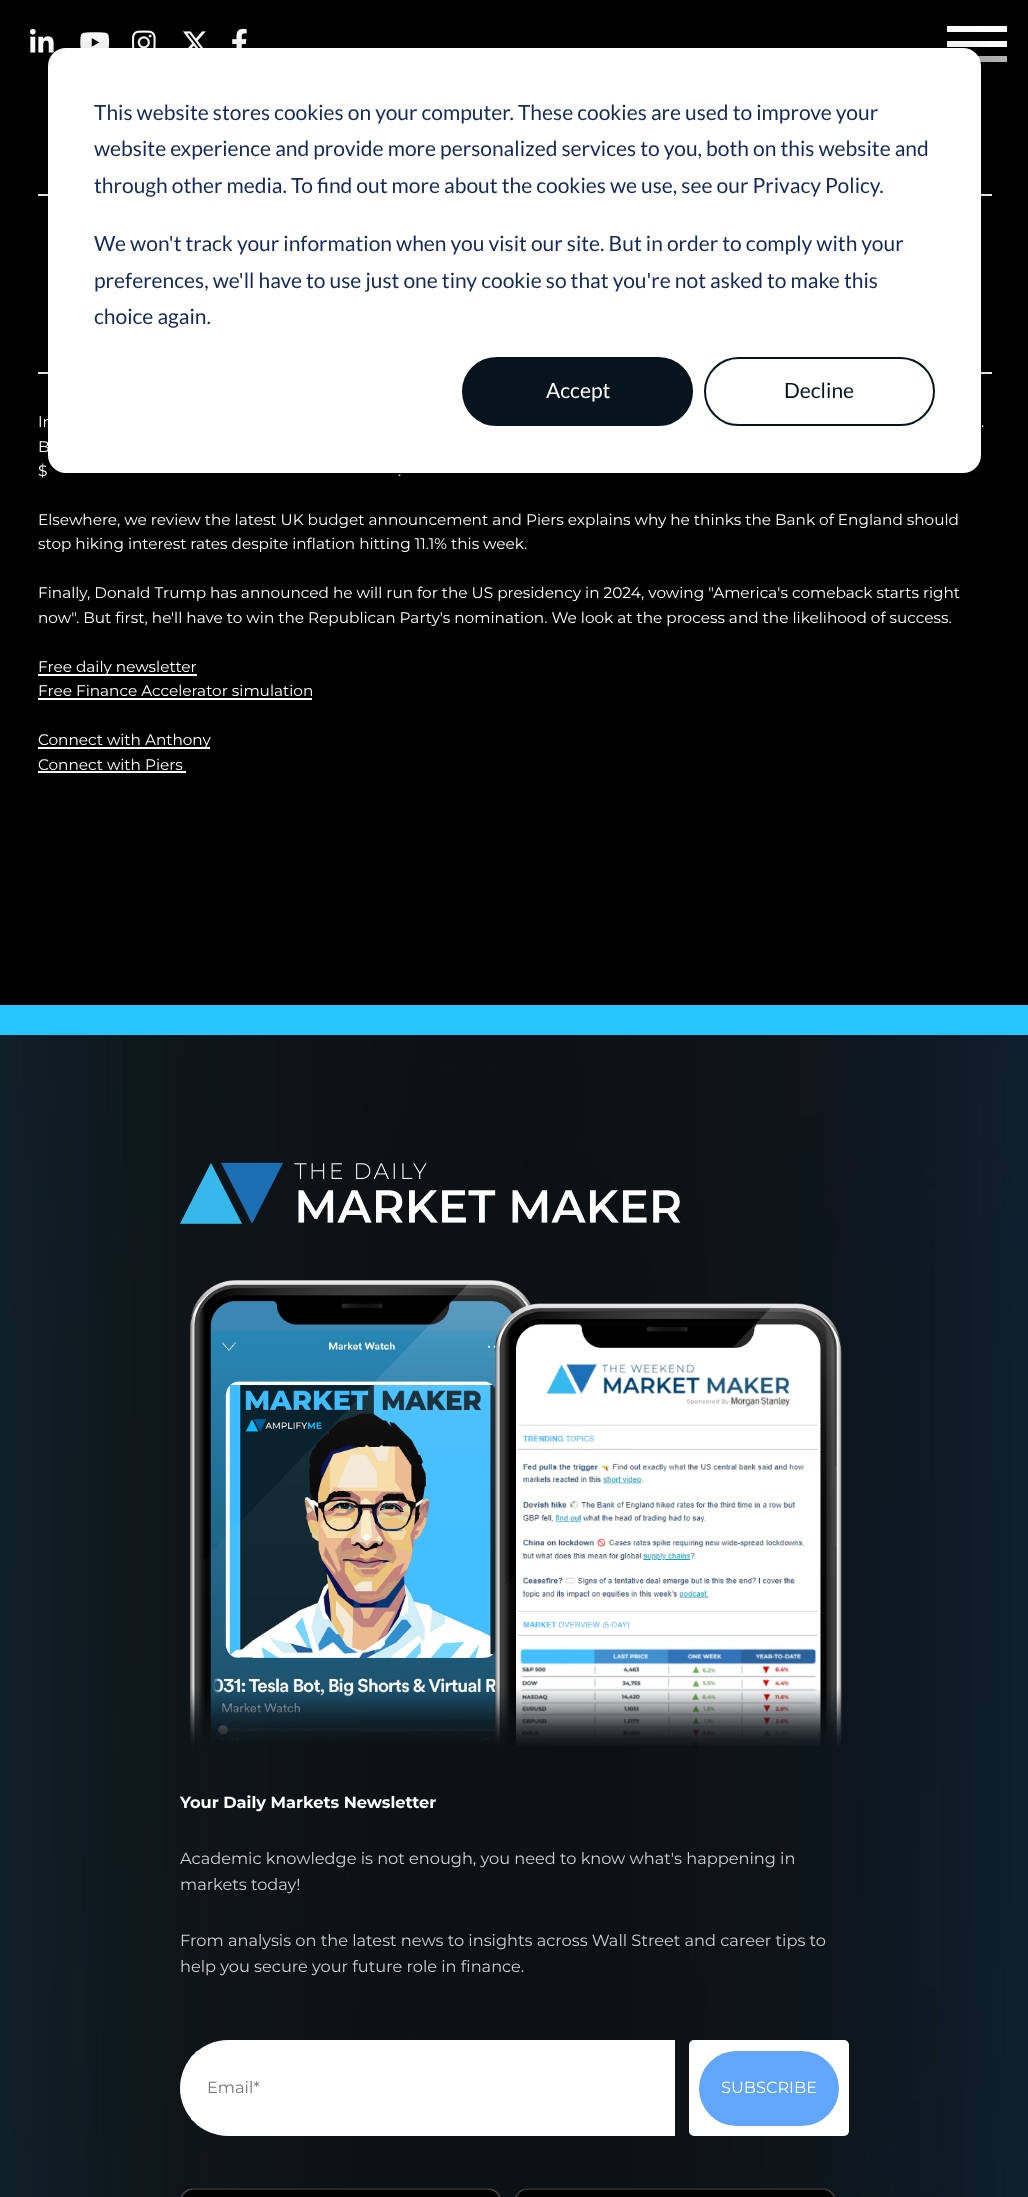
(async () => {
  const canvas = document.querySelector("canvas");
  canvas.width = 1028;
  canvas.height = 2197;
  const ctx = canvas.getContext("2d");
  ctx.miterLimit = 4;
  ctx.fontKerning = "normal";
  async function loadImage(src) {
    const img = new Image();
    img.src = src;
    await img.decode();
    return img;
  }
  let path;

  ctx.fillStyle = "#000000";
  ctx.fillRect(0, 0, 1028, 2197);
  ctx.drawImage(await loadImage("img/1.png"), 30, 28, 24, 25);
  ctx.drawImage(await loadImage("img/2.png"), 80, 32, 30, 16);
  ctx.drawImage(await loadImage("img/3.png"), 132, 30, 24, 18);
  ctx.drawImage(await loadImage("img/4.png"), 183, 31, 23, 17);
  ctx.drawImage(await loadImage("img/5.png"), 232, 28, 15, 20);
  for (const [x, y, w, h, color] of [
    [978, 56, 29, 6, "#b4b4b4"],
    [947, 26, 60, 6, "#ffffff"],
    [947, 41, 60, 6, "#ffffff"],
    [38, 194, 954, 2, "#ffffff"],
    [38, 372, 954, 2, "#ffffff"],
  ]) {
    ctx.fillStyle = color;
    ctx.fillRect(x, y, w, h);
  }
  ctx.fillStyle = "rgba(0, 0, 0, 0.28)";
  ctx.filter = "blur(21px)";
  ctx.beginPath();
  ctx.roundRect(48, 60, 933, 425, 18);
  ctx.fill();
  ctx.filter = "none";
  ctx.fillStyle = "#ffffff";
  ctx.beginPath();
  ctx.roundRect(48, 48, 933, 425, 18);
  ctx.fill();
  ctx.fillStyle = "#06151d";
  ctx.beginPath();
  ctx.roundRect(463, 358, 229, 67, 33.5);
  ctx.fill();
  ctx.strokeStyle = "#06151d";
  ctx.lineWidth = 2;
  ctx.stroke();
  ctx.beginPath();
  ctx.roundRect(705, 358, 229, 67, 33.5);
  ctx.stroke();
  for (const [x, y, w, h, color] of [
    [38, 674, 159, 2, "#ffffff"],
    [38, 698, 274, 2, "#ffffff"],
    [38, 747, 172, 2, "#ffffff"],
    [38, 771, 148, 2, "#ffffff"],
  ]) {
    ctx.fillStyle = color;
    ctx.fillRect(x, y, w, h);
  }
  ctx.drawImage(await loadImage("img/6.png"), 0, 1035, 1028, 1162);
  ctx.fillStyle = "#27c5ff";
  ctx.fillRect(0, 1005, 1028, 30);
  ctx.drawImage(await loadImage("img/7.png"), 180, 1162, 501, 62);
  ctx.drawImage(await loadImage("img/8.png"), 189, 1280, 653, 466);
  ctx.fillStyle = "#ffffff";
  ctx.beginPath();
  ctx.roundRect(180, 2040, 495, 96, [48, 0, 0, 48]);
  ctx.fill();
  path = new Path2D("M191 2119V2057L193 2055V2121ZM196 2053H660C662 2053 663 2054 663 2056V2121C663 2123 662 2124 660 2124H196L199 2126H660C663 2126 665 2124 665 2121V2056C665 2053 663 2051 660 2051H197L195 2053Z");
  ctx.fill(path, "evenodd");
  ctx.beginPath();
  ctx.roundRect(689, 2040, 160, 96, 5);
  ctx.fill();
  ctx.fillStyle = "#61a6fa";
  ctx.beginPath();
  ctx.roundRect(699, 2051, 140, 75, 37.5);
  ctx.fill();
  ctx.drawImage(await loadImage("img/9.png"), 181, 2188, 320, 9);
  ctx.drawImage(await loadImage("img/10.png"), 515, 2188, 320, 9);
  ctx.font = "21px Lato";
  ctx.fillStyle = "#15295a";
  for (const [text, x, y] of [
    ["This website stores cookies on your computer. These cookies are used to improve your", 94, 120],
    ["website experience and provide more personalized services to you, both on this website and", 94, 156],
    ["through other media. To find out more about the cookies we use, see our Privacy Policy.", 94, 193],
    ["We won't track your information when you visit our site. But in order to comply with your", 94, 251],
    ["preferences, we'll have to use just one tiny cookie so that you're not asked to make this", 94, 288],
    ["choice again.", 94, 324],
  ]) {
    ctx.fillText(text, x, y);
  }
  ctx.fillStyle = "#ffffff";
  ctx.fillText("Accept", 546, 398);
  ctx.fillStyle = "#06151d";
  ctx.fillText("Decline", 784, 398);
  ctx.font = "15.3px Montserrat";
  ctx.fillStyle = "#ffffff";
  for (const [text, x, y] of [
    ["In", 38, 427],
    [".", 981, 427],
    ["B", 38, 452],
    ["$", 38, 476],
    [".", 398, 476],
    ["Elsewhere, we review the latest UK budget announcement and Piers explains why he thinks the Bank of England should", 38, 525],
    ["stop hiking interest rates despite inflation hitting 11.1% this week.", 38, 549],
    ["Finally, Donald Trump has announced he will run for the US presidency in 2024, vowing \"America's comeback starts right", 38, 598],
    ["now\". But first, he'll have to win the Republican Party's nomination. We look at the process and the likelihood of success.", 38, 623],
    ["Free daily newsletter", 38, 672],
    ["Free Finance Accelerator simulation", 38, 696],
    ["Connect with Anthony", 38, 745],
    ["Connect with Piers", 38, 770],
  ]) {
    ctx.fillText(text, x, y);
  }
  ctx.font = "bold 16.2px Montserrat";
  ctx.fillText("Your Daily Markets Newsletter", 180, 1808);
  ctx.font = "16.2px Montserrat";
  ctx.fillStyle = "#cfd0d0";
  for (const [text, x, y] of [
    ["Academic knowledge is not enough, you need to know what's happening in", 180, 1864],
    ["markets today!", 180, 1890],
    ["From analysis on the latest news to insights across Wall Street and career tips to", 180, 1946],
    ["help you secure your future role in finance.", 180, 1972],
  ]) {
    ctx.fillText(text, x, y);
  }
  ctx.fillStyle = "#757575";
  ctx.fillText("Email*", 207, 2093);
  ctx.fillStyle = "#ffffff";
  ctx.fillText("SUBSCRIBE", 721, 2093);
})();
